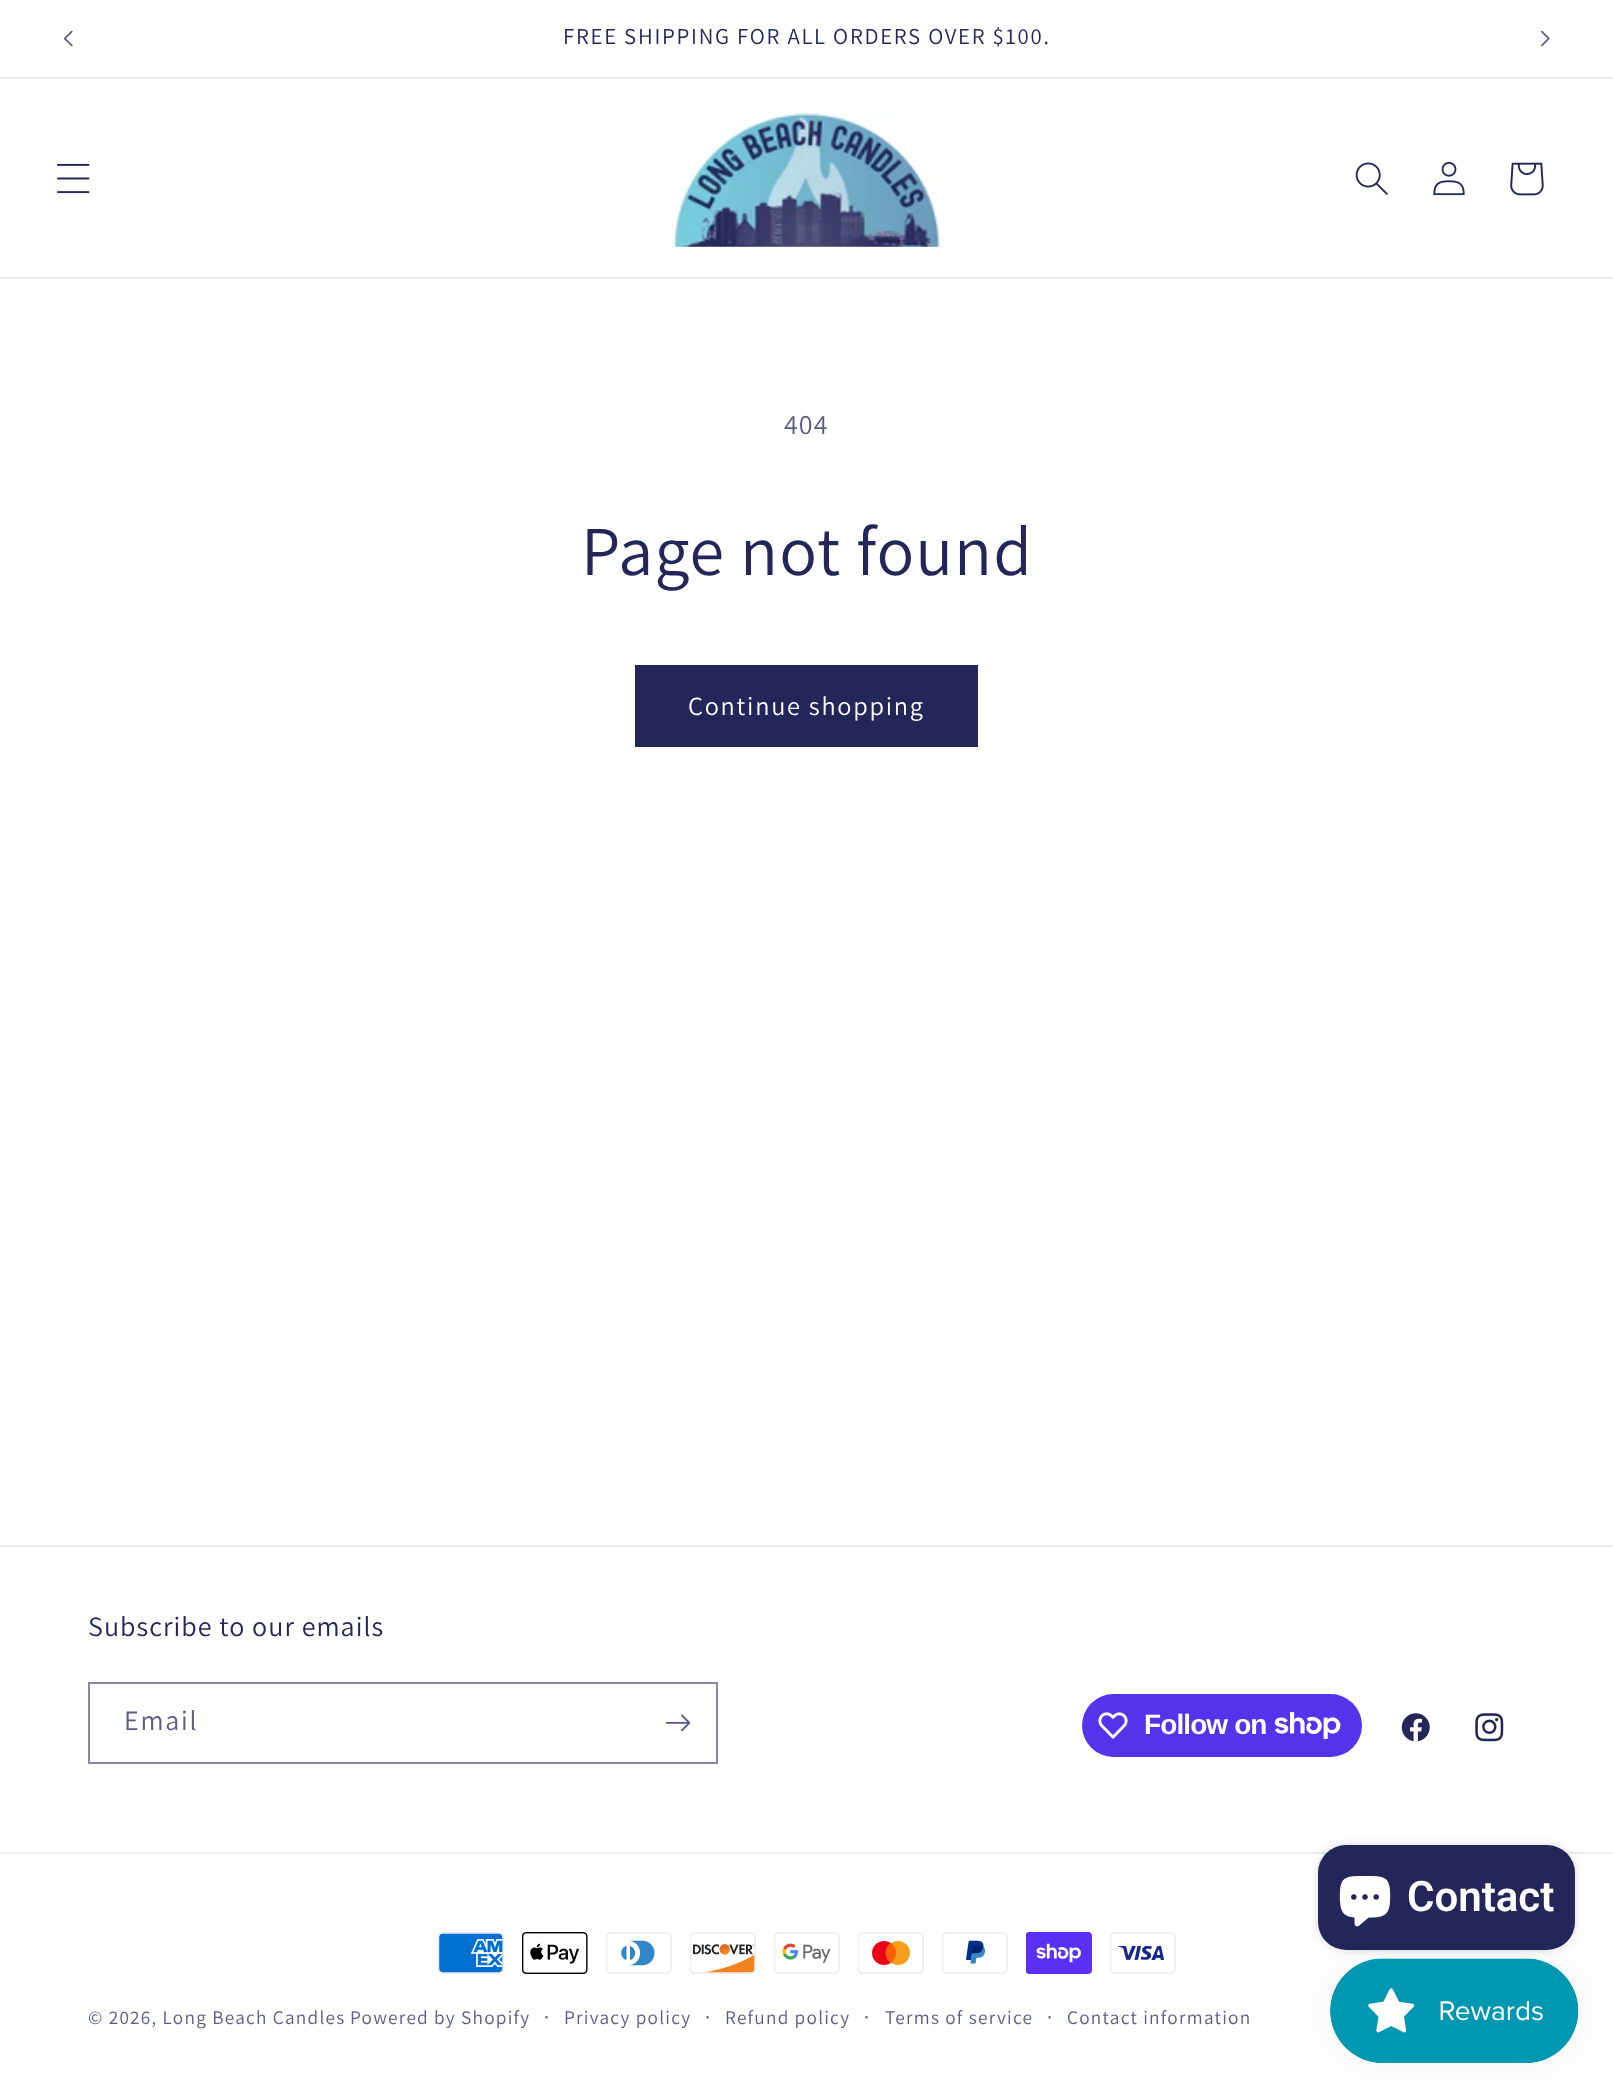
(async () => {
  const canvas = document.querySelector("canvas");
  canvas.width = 1613;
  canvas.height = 2098;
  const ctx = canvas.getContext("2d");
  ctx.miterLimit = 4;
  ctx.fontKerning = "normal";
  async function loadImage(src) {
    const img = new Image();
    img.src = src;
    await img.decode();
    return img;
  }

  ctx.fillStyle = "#ffffff";
  ctx.fillRect(0, 0, 1613, 2098);
  ctx.fillStyle = "#edeef2";
  ctx.fillRect(0, 77, 1613, 2);
  ctx.drawImage(await loadImage("img/1.png"), 63, 30, 10, 17);
  ctx.drawImage(await loadImage("img/2.png"), 1540, 30, 10, 17);
  ctx.fillRect(0, 277, 1613, 2);
  ctx.drawImage(await loadImage("img/3.png"), 57, 163, 33, 31);
  ctx.drawImage(await loadImage("img/4.png"), 667, 110, 274, 137);
  ctx.drawImage(await loadImage("img/5.png"), 1355, 162, 33, 33);
  ctx.drawImage(await loadImage("img/6.png"), 1433, 161, 32, 35);
  ctx.drawImage(await loadImage("img/7.png"), 1510, 162, 34, 34);
  ctx.fillStyle = "#242659";
  ctx.fillRect(635, 665, 343, 82);
  ctx.fillStyle = "#edeef2";
  ctx.fillRect(0, 1545, 1613, 2);
  ctx.strokeStyle = "#8788a4";
  ctx.lineWidth = 2;
  ctx.strokeRect(89, 1683, 628, 80);
  ctx.drawImage(await loadImage("img/8.png"), 666, 1714, 25, 18);
  ctx.fillStyle = "#5433eb";
  ctx.beginPath();
  ctx.roundRect(1082, 1694, 280, 63, 31.5);
  ctx.fill();
  ctx.drawImage(await loadImage("img/9.png"), 1098, 1712, 30, 27);
  ctx.drawImage(await loadImage("img/10.png"), 1274, 1712, 67, 27);
  ctx.drawImage(await loadImage("img/11.png"), 1401, 1713, 29, 29);
  ctx.drawImage(await loadImage("img/12.png"), 1475, 1713, 29, 29);
  ctx.fillStyle = "#edeef2";
  ctx.fillRect(0, 1852, 1613, 2);
  ctx.drawImage(await loadImage("img/13.png"), 438, 1932, 66, 42);
  ctx.drawImage(await loadImage("img/14.png"), 522, 1932, 66, 42);
  ctx.drawImage(await loadImage("img/15.png"), 606, 1932, 66, 42);
  ctx.drawImage(await loadImage("img/16.png"), 690, 1932, 66, 42);
  ctx.drawImage(await loadImage("img/17.png"), 774, 1932, 66, 42);
  ctx.drawImage(await loadImage("img/18.png"), 858, 1932, 66, 42);
  ctx.drawImage(await loadImage("img/19.png"), 942, 1932, 66, 42);
  ctx.drawImage(await loadImage("img/20.png"), 1026, 1932, 66, 42);
  ctx.drawImage(await loadImage("img/21.png"), 1110, 1932, 66, 42);
  ctx.fillStyle = "rgba(0, 0, 0, 0.15)";
  ctx.filter = "blur(4.5px)";
  ctx.beginPath();
  ctx.roundRect(1318, 1845, 257, 105, 28);
  ctx.fill();
  ctx.filter = "none";
  ctx.fillStyle = "#242659";
  ctx.beginPath();
  ctx.roundRect(1318, 1845, 257, 105, 28);
  ctx.fill();
  ctx.drawImage(await loadImage("img/22.png"), 1339, 1876, 52, 51);
  ctx.fillStyle = "rgba(0, 0, 0, 0.05)";
  ctx.filter = "blur(22px)";
  ctx.beginPath();
  ctx.roundRect(1330, 1958, 249, 105, 52.5);
  ctx.fill();
  ctx.filter = "none";
  ctx.drawImage(await loadImage("img/23.png"), 1330, 1958, 249, 105);
  ctx.letterSpacing = "1.75px";
  ctx.font = "22.75px Assistant";
  ctx.fillStyle = "#242659";
  ctx.fillText("FREE SHIPPING FOR ALL ORDERS OVER $100.", 563, 44);
  ctx.letterSpacing = "1.05px";
  ctx.font = "28px Assistant";
  ctx.fillStyle = "#5b5c83";
  ctx.fillText("404", 784, 434);
  ctx.font = "70px Assistant";
  ctx.fillStyle = "#242659";
  ctx.fillText("Page not found", 581, 575);
  ctx.letterSpacing = "1.75px";
  ctx.font = "26.25px Assistant";
  ctx.fillStyle = "#ffffff";
  ctx.fillText("Continue shopping", 688, 715);
  ctx.letterSpacing = "1.05px";
  ctx.font = "28px Assistant";
  ctx.fillStyle = "#242659";
  ctx.fillText("Subscribe to our emails", 88, 1636);
  ctx.letterSpacing = "1.75px";
  ctx.fillStyle = "#5b5c83";
  ctx.fillText("Email", 124, 1730);
  ctx.letterSpacing = "-0.9px";
  ctx.font = "bold 28px Liberation Sans";
  ctx.fillStyle = "#ffffff";
  ctx.fillText("Follow on", 1144, 1734);
  ctx.letterSpacing = "1.25px";
  ctx.font = "19.25px Assistant";
  ctx.fillStyle = "#5b5c83";
  ctx.fillText("© 2026, Long Beach Candles", 88, 2024);
  ctx.fillText("Powered by Shopify", 350, 2024);
  ctx.font = "21px Assistant";
  ctx.fillText("·", 544, 2024);
  ctx.font = "19.25px Assistant";
  ctx.fillText("Privacy policy", 564, 2024);
  ctx.font = "21px Assistant";
  ctx.fillText("·", 705, 2024);
  ctx.font = "19.25px Assistant";
  ctx.fillText("Refund policy", 725, 2024);
  ctx.font = "21px Assistant";
  ctx.fillText("·", 864, 2024);
  ctx.font = "19.25px Assistant";
  ctx.fillText("Terms of service", 885, 2024);
  ctx.font = "21px Assistant";
  ctx.fillText("·", 1047, 2024);
  ctx.font = "19.25px Assistant";
  ctx.fillText("Contact information", 1067, 2024);
  ctx.letterSpacing = "0px";
  ctx.font = "600 42px Roboto";
  ctx.fillStyle = "#ffffff";
  ctx.fillText("Contact", 1407, 1911);
})();
